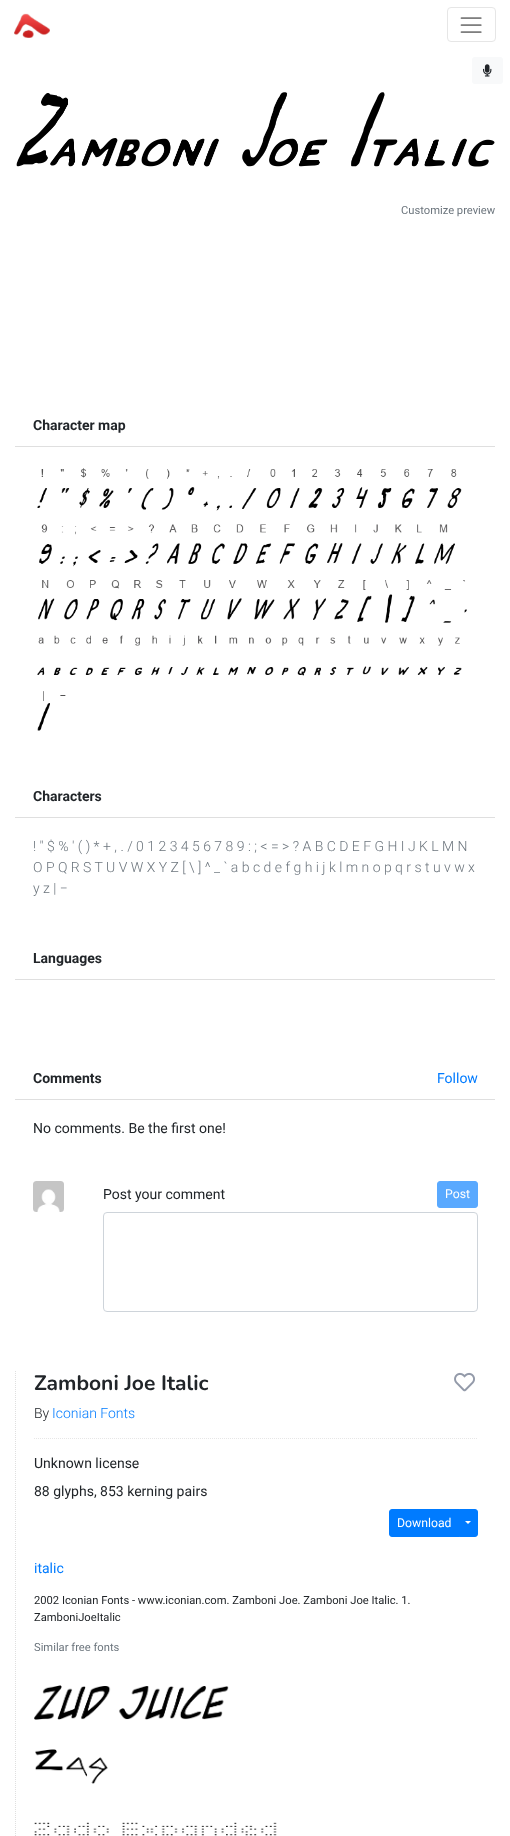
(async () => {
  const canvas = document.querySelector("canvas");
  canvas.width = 510;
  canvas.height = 1836;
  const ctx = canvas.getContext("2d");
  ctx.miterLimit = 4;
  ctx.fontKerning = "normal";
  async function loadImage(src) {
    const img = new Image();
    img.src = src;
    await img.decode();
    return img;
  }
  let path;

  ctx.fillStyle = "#ffffff";
  ctx.fillRect(0, 0, 510, 1836);
  ctx.drawImage(await loadImage("img/1.png"), 14, 13, 36, 25);
  ctx.beginPath();
  ctx.roundRect(447.5, 7.5, 48, 34, 3.5);
  ctx.strokeStyle = "#e6e6e6";
  ctx.stroke();
  ctx.drawImage(await loadImage("img/2.png"), 460, 17, 22, 16);
  ctx.fillStyle = "#f8f9fa";
  ctx.beginPath();
  ctx.roundRect(472, 57, 31, 27, 3);
  ctx.fill();
  ctx.drawImage(await loadImage("img/3.png"), 483, 64, 9, 13);
  ctx.drawImage(await loadImage("img/4.png"), 16, 92, 479, 75);
  ctx.fillStyle = "#dfdfdf";
  ctx.fillRect(15, 446, 480, 1);
  ctx.drawImage(await loadImage("img/5.png"), 37, 468, 430, 263);
  for (const [x, y, w, h, color] of [
    [15, 817, 480, 1, "#dfdfdf"],
    [15, 979, 480, 1, "#dfdfdf"],
    [15, 1099, 480, 1, "#dfdfdf"],
  ]) {
    ctx.fillStyle = color;
    ctx.fillRect(x, y, w, h);
  }
  ctx.drawImage(await loadImage("img/6.png"), 33, 1181, 31, 31);
  ctx.fillStyle = "#59a9ff";
  ctx.beginPath();
  ctx.roundRect(437.5, 1181.5, 40, 26, 2.5);
  ctx.fill();
  ctx.strokeStyle = "#59a9ff";
  ctx.stroke();
  ctx.beginPath();
  ctx.roundRect(103.5, 1212.5, 374, 99, 3.5);
  ctx.strokeStyle = "#ced4da";
  ctx.stroke();
  path = new Path2D("M15.5 1371V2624");
  ctx.strokeStyle = "#dfdfdf";
  ctx.setLineDash([1, 1]);
  ctx.stroke(path);
  ctx.drawImage(await loadImage("img/7.png"), 454, 1372, 21, 20);
  path = new Path2D("M34 1438.5H478");
  ctx.strokeStyle = "#e6e6e6";
  ctx.stroke(path);
  ctx.fillStyle = "#007bff";
  ctx.beginPath();
  ctx.roundRect(389.5, 1509.5, 70, 27, [2.5, 0, 0, 2.5]);
  ctx.fill();
  ctx.strokeStyle = "#007bff";
  ctx.setLineDash([]);
  ctx.stroke();
  ctx.beginPath();
  ctx.roundRect(459.5, 1509.5, 18, 27, [0, 2.5, 2.5, 0]);
  ctx.fill();
  ctx.stroke();
  ctx.fillStyle = "#ffffff";
  path = new Path2D("M465 1521H471L468 1524Z");
  ctx.fill(path);
  ctx.drawImage(await loadImage("img/8.png"), 34, 1685, 195, 35);
  ctx.drawImage(await loadImage("img/9.png"), 35, 1749, 73, 35);
  ctx.drawImage(await loadImage("img/10.png"), 34, 1822, 243, 14);
  ctx.font = "11.2px Roboto";
  ctx.fillStyle = "#6c757d";
  ctx.fillText("Customize preview", 401, 214);
  ctx.font = "bold 14px Roboto";
  ctx.fillStyle = "#212529";
  ctx.fillText("Character map", 33, 430);
  ctx.fillText("Characters", 33, 801);
  ctx.font = "300 14px Roboto";
  ctx.fillStyle = "#6c757d";
  for (const [text, x, y] of [
    ["! \" $ % ' ( ) * + , . / 0 1 2 3 4 5 6 7 8 9 : ; < = > ? A B C D E F G H I J K L M N", 33, 851],
    ["O P Q R S T U V W X Y Z [ \\ ] ^ _ ` a b c d e f g h i j k l m n o p q r s t u v w x", 33, 872],
    ["y z | −", 33, 893],
  ]) {
    ctx.fillText(text, x, y);
  }
  ctx.font = "bold 14px Roboto";
  ctx.fillStyle = "#212529";
  ctx.fillText("Languages", 33, 963);
  ctx.fillText("Comments", 33, 1083);
  ctx.font = "14px Roboto";
  ctx.fillStyle = "#007bff";
  ctx.fillText("Follow", 437, 1083);
  ctx.fillStyle = "#212529";
  ctx.fillText("No comments. Be the first one!", 33, 1133);
  ctx.fillText("Post your comment", 103, 1199);
  ctx.font = "12.25px Roboto";
  ctx.fillStyle = "#ffffff";
  ctx.fillText("Post", 445, 1198);
  ctx.font = "200 21px Nunito";
  ctx.fillStyle = "#212529";
  ctx.fillText("Zamboni Joe Italic", 34, 1390);
  ctx.font = "300 14px Roboto";
  ctx.fillText("By", 34, 1418);
  ctx.fillStyle = "#007bff";
  ctx.fillText("Iconian Fonts", 52, 1418);
  ctx.font = "14px Roboto";
  ctx.fillStyle = "#212529";
  ctx.fillText("Unknown license", 34, 1468);
  ctx.fillText("88 glyphs, 853 kerning pairs", 34, 1496);
  ctx.font = "12.25px Roboto";
  ctx.fillStyle = "#ffffff";
  ctx.fillText("Download", 397, 1527);
  ctx.font = "14px Roboto";
  ctx.fillStyle = "#007bff";
  ctx.fillText("italic", 34, 1573);
  ctx.font = "11.2px Roboto";
  ctx.fillStyle = "#212529";
  ctx.fillText("2002 Iconian Fonts - www.iconian.com. Zamboni Joe. Zamboni Joe Italic. 1.", 34, 1604);
  ctx.fillText("ZamboniJoeItalic", 34, 1621);
  ctx.fillStyle = "#6c757d";
  ctx.fillText("Similar free fonts", 34, 1651);
})();
